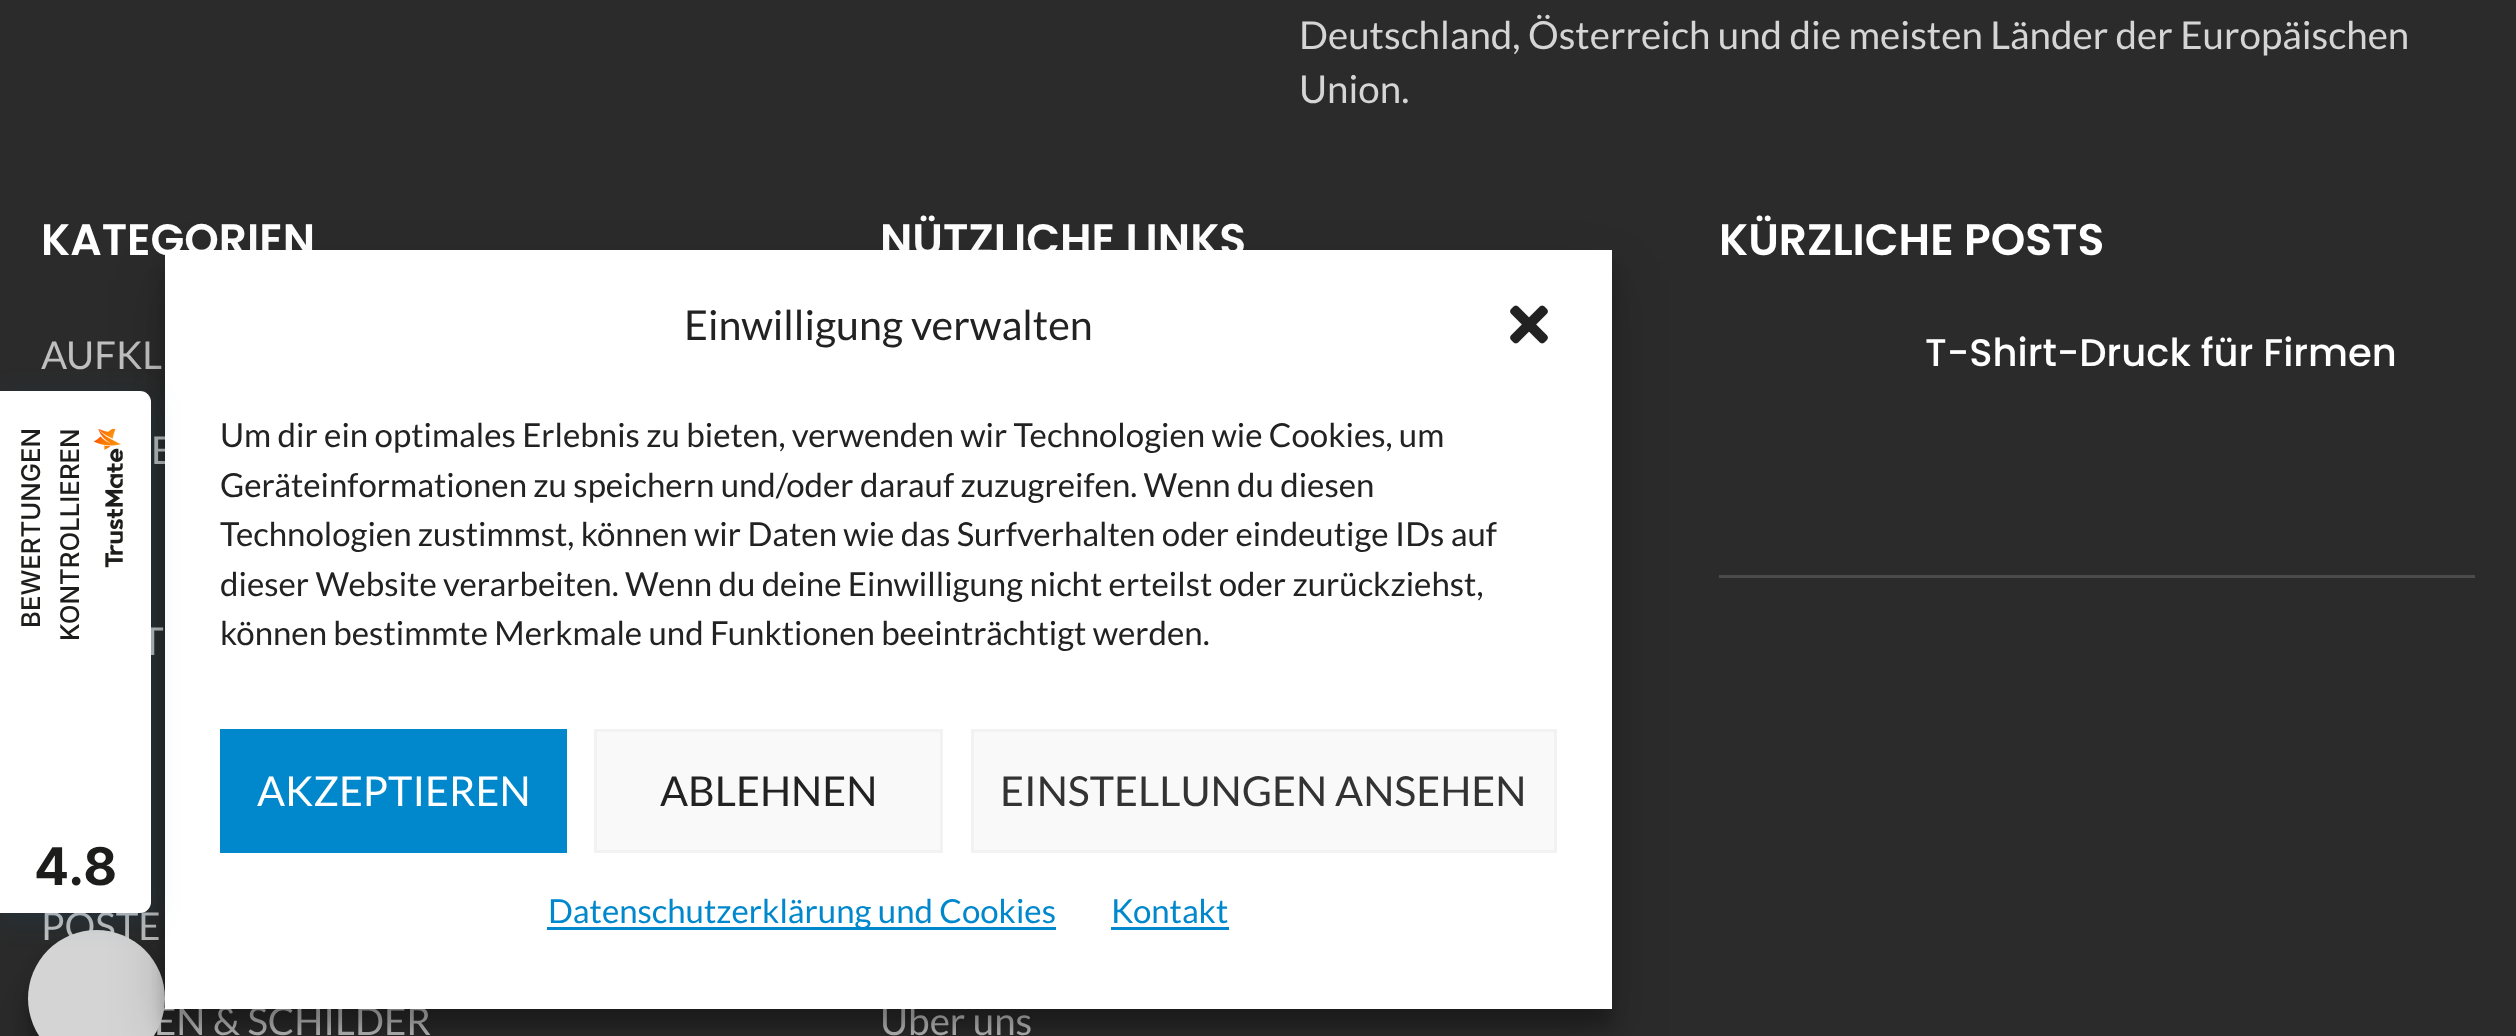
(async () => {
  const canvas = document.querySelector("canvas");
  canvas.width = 2516;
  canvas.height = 1036;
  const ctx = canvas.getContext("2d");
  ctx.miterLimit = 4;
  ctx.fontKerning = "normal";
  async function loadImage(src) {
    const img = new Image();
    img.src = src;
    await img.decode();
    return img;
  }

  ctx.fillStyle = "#2b2b2b";
  ctx.fillRect(0, 0, 2516, 1036);
  ctx.fillStyle = "#4b4b4b";
  ctx.fillRect(1719, 575, 756, 3);
  ctx.fillStyle = "rgba(0, 0, 0, 0.23)";
  ctx.filter = "blur(8px)";
  ctx.beginPath();
  ctx.roundRect(28, 946, 137, 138, 68.5);
  ctx.fill();
  ctx.filter = "none";
  ctx.fillStyle = "rgba(0, 0, 0, 0.19)";
  ctx.filter = "blur(27.5px)";
  ctx.beginPath();
  ctx.roundRect(28, 957, 137, 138, 68.5);
  ctx.fill();
  ctx.filter = "none";
  ctx.font = "38.5px Lato";
  ctx.fillStyle = "#d5d5d5";
  ctx.fillText("Deutschland, Österreich und die meisten Länder der Europäischen", 1299, 49);
  ctx.fillText("Union.", 1299, 103);
  ctx.font = "600 44px Poppins";
  ctx.fillStyle = "#ffffff";
  ctx.fillText("KATEGORIEN", 41, 255);
  ctx.font = "38.5px Lato";
  ctx.fillStyle = "#bfbfbf";
  for (const [text, x, y] of [
    ["AUFKL", 41, 369],
    ["E", 151, 464],
    ["T", 141, 655],
    ["POSTE", 41, 940],
    ["EN & SCHILDER", 154, 1035],
  ]) {
    ctx.fillText(text, x, y);
  }
  ctx.font = "600 44px Poppins";
  ctx.fillStyle = "#ffffff";
  ctx.fillText("NÜTZLICHE LINKS", 880, 255);
  ctx.font = "38.5px Lato";
  ctx.fillStyle = "#bfbfbf";
  ctx.fillText("Über uns", 880, 1035);
  ctx.font = "600 44px Poppins";
  ctx.fillStyle = "#ffffff";
  ctx.fillText("KÜRZLICHE POSTS", 1719, 255);
  ctx.font = "500 38.5px Poppins";
  ctx.fillText("T-Shirt-Druck für Firmen", 1925, 366);
  ctx.fillStyle = "#d4d4d4";
  ctx.beginPath();
  ctx.arc(96.5, 998.5, 68.5, 0, Math.PI * 2);
  ctx.fill();
  ctx.fillStyle = "rgba(0, 0, 0, 0.19)";
  ctx.filter = "blur(27.5px)";
  ctx.beginPath();
  ctx.rect(165, 278, 1447, 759);
  ctx.fill();
  ctx.filter = "none";
  ctx.fillStyle = "rgba(0, 0, 0, 0.23)";
  ctx.filter = "blur(8px)";
  ctx.beginPath();
  ctx.rect(165, 267, 1447, 759);
  ctx.fill();
  ctx.filter = "none";
  ctx.fillStyle = "#ffffff";
  ctx.fillRect(165, 250, 1447, 759);
  ctx.fillStyle = "rgba(11, 86, 128, 0.2)";
  ctx.filter = "blur(14px)";
  ctx.beginPath();
  ctx.roundRect(0, 396, 151, 523, 11);
  ctx.fill();
  ctx.filter = "none";
  ctx.fillStyle = "#ffffff";
  ctx.beginPath();
  ctx.roundRect(0, 391, 151, 522, [0, 11, 11, 0]);
  ctx.fill();
  ctx.drawImage(await loadImage("img/1.png"), 93, 428, 30, 140);
  ctx.font = "500 25.75px Inter";
  ctx.fillStyle = "#1d1d1b";
  ctx.save();
  ctx.translate(79, 641);
  ctx.rotate(-90 * Math.PI / 180);
  ctx.fillText("KONTROLLIEREN", 0, 0);
  ctx.restore();
  ctx.save();
  ctx.translate(40, 628);
  ctx.rotate(-90 * Math.PI / 180);
  ctx.fillText("BEWERTUNGEN", 0, 0);
  ctx.restore();
  ctx.font = "bold 52px Inter";
  ctx.fillText("4.8", 34, 885);
  ctx.fillStyle = "#f9f9f9";
  ctx.beginPath();
  ctx.rect(972.5, 730.5, 583, 121);
  ctx.fill();
  ctx.strokeStyle = "#f2f2f2";
  ctx.lineWidth = 3;
  ctx.stroke();
  ctx.font = "41.25px Lato";
  ctx.fillStyle = "#333333";
  ctx.fillText("EINSTELLUNGEN ANSEHEN", 1000, 806);
  ctx.fillStyle = "#f9f9f9";
  ctx.beginPath();
  ctx.rect(595.5, 730.5, 346, 121);
  ctx.fill();
  ctx.stroke();
  ctx.fillStyle = "#222222";
  ctx.fillText("ABLEHNEN", 660, 806);
  ctx.fillStyle = "#0188cc";
  ctx.fillRect(220, 729, 347, 124);
  ctx.fillStyle = "#ffffff";
  ctx.fillText("AKZEPTIEREN", 257, 806);
  ctx.font = "33px Lato";
  ctx.fillStyle = "#222222";
  for (const [text, x, y] of [
    ["können bestimmte Merkmale und Funktionen beeinträchtigt werden.", 220, 645],
    ["dieser Website verarbeiten. Wenn du deine Einwilligung nicht erteilst oder zurückziehst,", 220, 596],
    ["Technologien zustimmst, können wir Daten wie das Surfverhalten oder eindeutige IDs auf", 220, 546],
    ["Geräteinformationen zu speichern und/oder darauf zuzugreifen. Wenn du diesen", 220, 497],
    ["Um dir ein optimales Erlebnis zu bieten, verwenden wir Technologien wie Cookies, um", 220, 447],
  ]) {
    ctx.fillText(text, x, y);
  }
  ctx.drawImage(await loadImage("img/2.png"), 1510, 305, 38, 39);
  ctx.fillStyle = "#0188cc";
  ctx.fillText("Kontakt", 1111, 923);
  ctx.fillRect(1111, 927, 118, 3);
  ctx.fillRect(547, 927, 509, 3);
  ctx.fillText("Datenschutzerklärung und Cookies", 548, 923);
  ctx.font = "41.25px Lato";
  ctx.fillStyle = "#222222";
  ctx.fillText("Einwilligung verwalten", 684, 340);
})();
